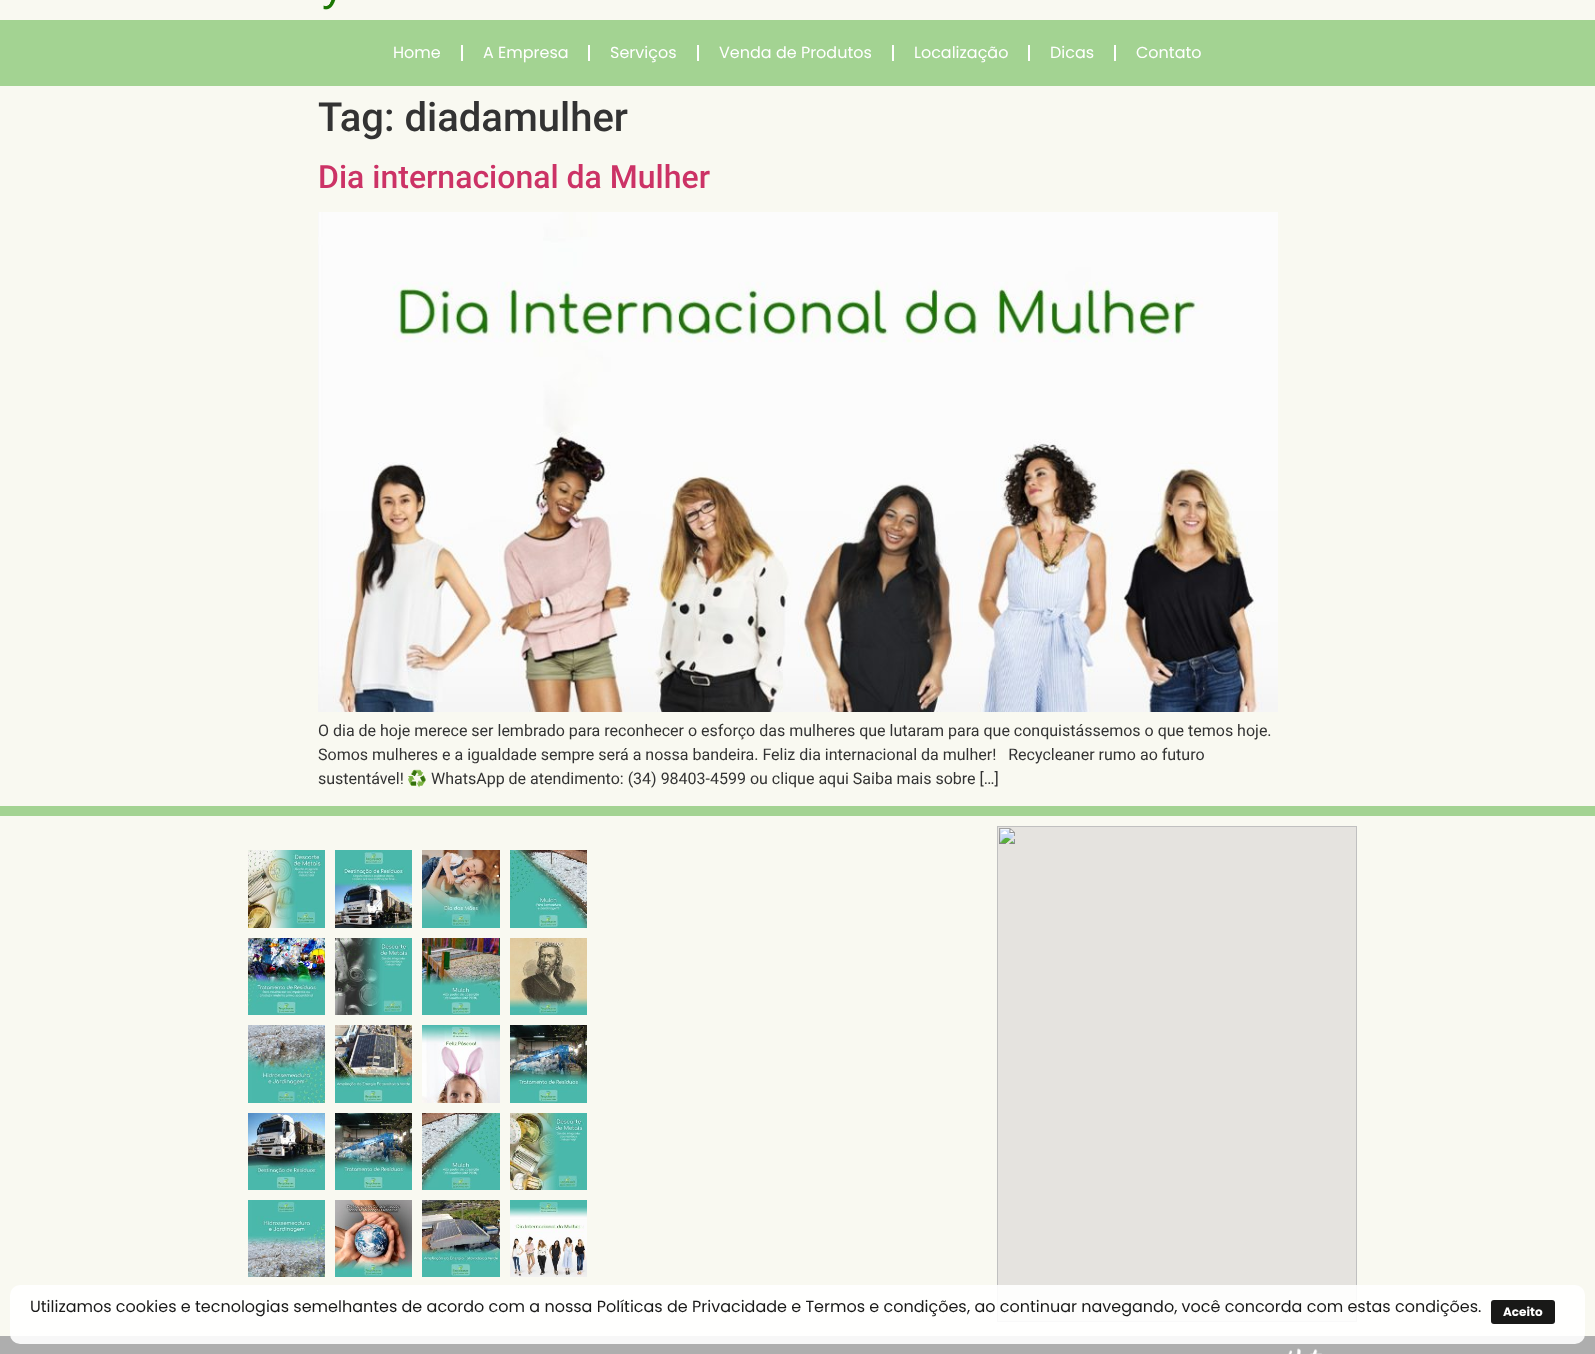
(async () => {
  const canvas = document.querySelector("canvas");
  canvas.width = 1595;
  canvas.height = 1354;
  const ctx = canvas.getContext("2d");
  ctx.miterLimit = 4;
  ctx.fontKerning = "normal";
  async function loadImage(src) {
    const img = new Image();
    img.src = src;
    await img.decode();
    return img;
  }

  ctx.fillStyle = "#f9f9f1";
  ctx.fillRect(0, 0, 1595, 1354);
  ctx.drawImage(await loadImage("img/1.png"), 323, 0, 13, 10);
  for (const [x, y, w, h, color] of [
    [0, 20, 1595, 66, "#a3d392"],
    [461, 45, 2, 16, "#ffffff"],
    [588, 45, 2, 16, "#ffffff"],
    [697, 45, 2, 16, "#ffffff"],
    [892, 45, 2, 16, "#ffffff"],
    [1028, 45, 2, 16, "#ffffff"],
    [1114, 45, 2, 16, "#ffffff"],
  ]) {
    ctx.fillStyle = color;
    ctx.fillRect(x, y, w, h);
  }
  ctx.drawImage(await loadImage("img/2.png"), 318, 212, 960, 500);
  ctx.fillStyle = "#a3d392";
  ctx.fillRect(0, 806, 1595, 10);
  ctx.drawImage(await loadImage("img/3.png"), 248, 850, 77, 78);
  ctx.drawImage(await loadImage("img/4.png"), 335, 850, 77, 78);
  ctx.drawImage(await loadImage("img/5.png"), 422, 850, 78, 78);
  ctx.drawImage(await loadImage("img/6.png"), 510, 850, 77, 78);
  ctx.drawImage(await loadImage("img/7.png"), 248, 938, 77, 77);
  ctx.drawImage(await loadImage("img/8.png"), 335, 938, 77, 77);
  ctx.drawImage(await loadImage("img/9.png"), 422, 938, 78, 77);
  ctx.drawImage(await loadImage("img/10.png"), 510, 938, 77, 77);
  ctx.drawImage(await loadImage("img/11.png"), 248, 1025, 77, 78);
  ctx.drawImage(await loadImage("img/12.png"), 335, 1025, 77, 78);
  ctx.drawImage(await loadImage("img/13.png"), 422, 1025, 78, 78);
  ctx.drawImage(await loadImage("img/14.png"), 510, 1025, 77, 78);
  ctx.drawImage(await loadImage("img/15.png"), 248, 1113, 77, 77);
  ctx.drawImage(await loadImage("img/16.png"), 335, 1113, 77, 77);
  ctx.drawImage(await loadImage("img/17.png"), 422, 1113, 78, 77);
  ctx.drawImage(await loadImage("img/18.png"), 510, 1113, 77, 77);
  ctx.drawImage(await loadImage("img/19.png"), 248, 1200, 77, 77);
  ctx.drawImage(await loadImage("img/20.png"), 335, 1200, 77, 77);
  ctx.drawImage(await loadImage("img/21.png"), 422, 1200, 78, 77);
  ctx.drawImage(await loadImage("img/22.png"), 510, 1200, 77, 77);
  ctx.drawImage(await loadImage("img/23.png"), 997, 826, 360, 496);
  ctx.fillStyle = "#aeaeae";
  ctx.fillRect(0, 1336, 1595, 18);
  ctx.drawImage(await loadImage("img/24.png"), 1288, 1348, 34, 6);
  ctx.fillStyle = "rgba(255, 255, 255, 0.9)";
  ctx.beginPath();
  ctx.roundRect(10, 1285, 1575, 59, 10);
  ctx.fill();
  ctx.fillStyle = "#191918";
  ctx.beginPath();
  ctx.roundRect(1491, 1300, 64, 24, 3);
  ctx.fill();
  ctx.font = "16px Poppins";
  ctx.fillStyle = "#ffffff";
  for (const [text, x, y] of [
    ["Home", 393, 58],
    ["A Empresa", 483, 58],
    ["Serviços", 610, 58],
    ["Venda de Produtos", 719, 58],
    ["Localização", 914, 58],
    ["Dicas", 1050, 58],
    ["Contato", 1136, 58],
  ]) {
    ctx.fillText(text, x, y);
  }
  ctx.font = "500 40px Roboto";
  ctx.fillStyle = "#333333";
  ctx.fillText("Tag: diadamulher", 318, 131);
  ctx.font = "500 32px Roboto";
  ctx.fillStyle = "#cc3366";
  ctx.fillText("Dia internacional da Mulher", 318, 188);
  ctx.font = "16px Roboto";
  ctx.fillStyle = "#333333";
  for (const [text, x, y] of [
    ["O dia de hoje merece ser lembrado para reconhecer o esforço das mulheres que lutaram para que conquistássemos o que temos hoje.", 318, 736],
    ["Somos mulheres e a igualdade sempre será a nossa bandeira. Feliz dia internacional da mulher!   Recycleaner rumo ao futuro", 318, 760],
    ["sustentável!", 318, 784],
  ]) {
    ctx.fillText(text, x, y);
  }
  ctx.font = "16px Noto Color Emoji";
  ctx.fillText("♻️", 407, 784);
  ctx.font = "16px Roboto";
  ctx.fillText("WhatsApp de atendimento: (34) 98403-4599 ou clique aqui Saiba mais sobre […]", 431, 784);
  ctx.font = "16px Poppins";
  ctx.fillStyle = "#191918";
  ctx.fillText("Utilizamos cookies e tecnologias semelhantes de acordo com a nossa Políticas de Privacidade e Termos e condições", 30, 1312);
  ctx.fillText(", ao continuar navegando, você concorda com estas condições.", 967, 1312);
  ctx.font = "bold 12px Poppins";
  ctx.fillStyle = "#ffffff";
  ctx.fillText("Aceito", 1503, 1316);
})();
